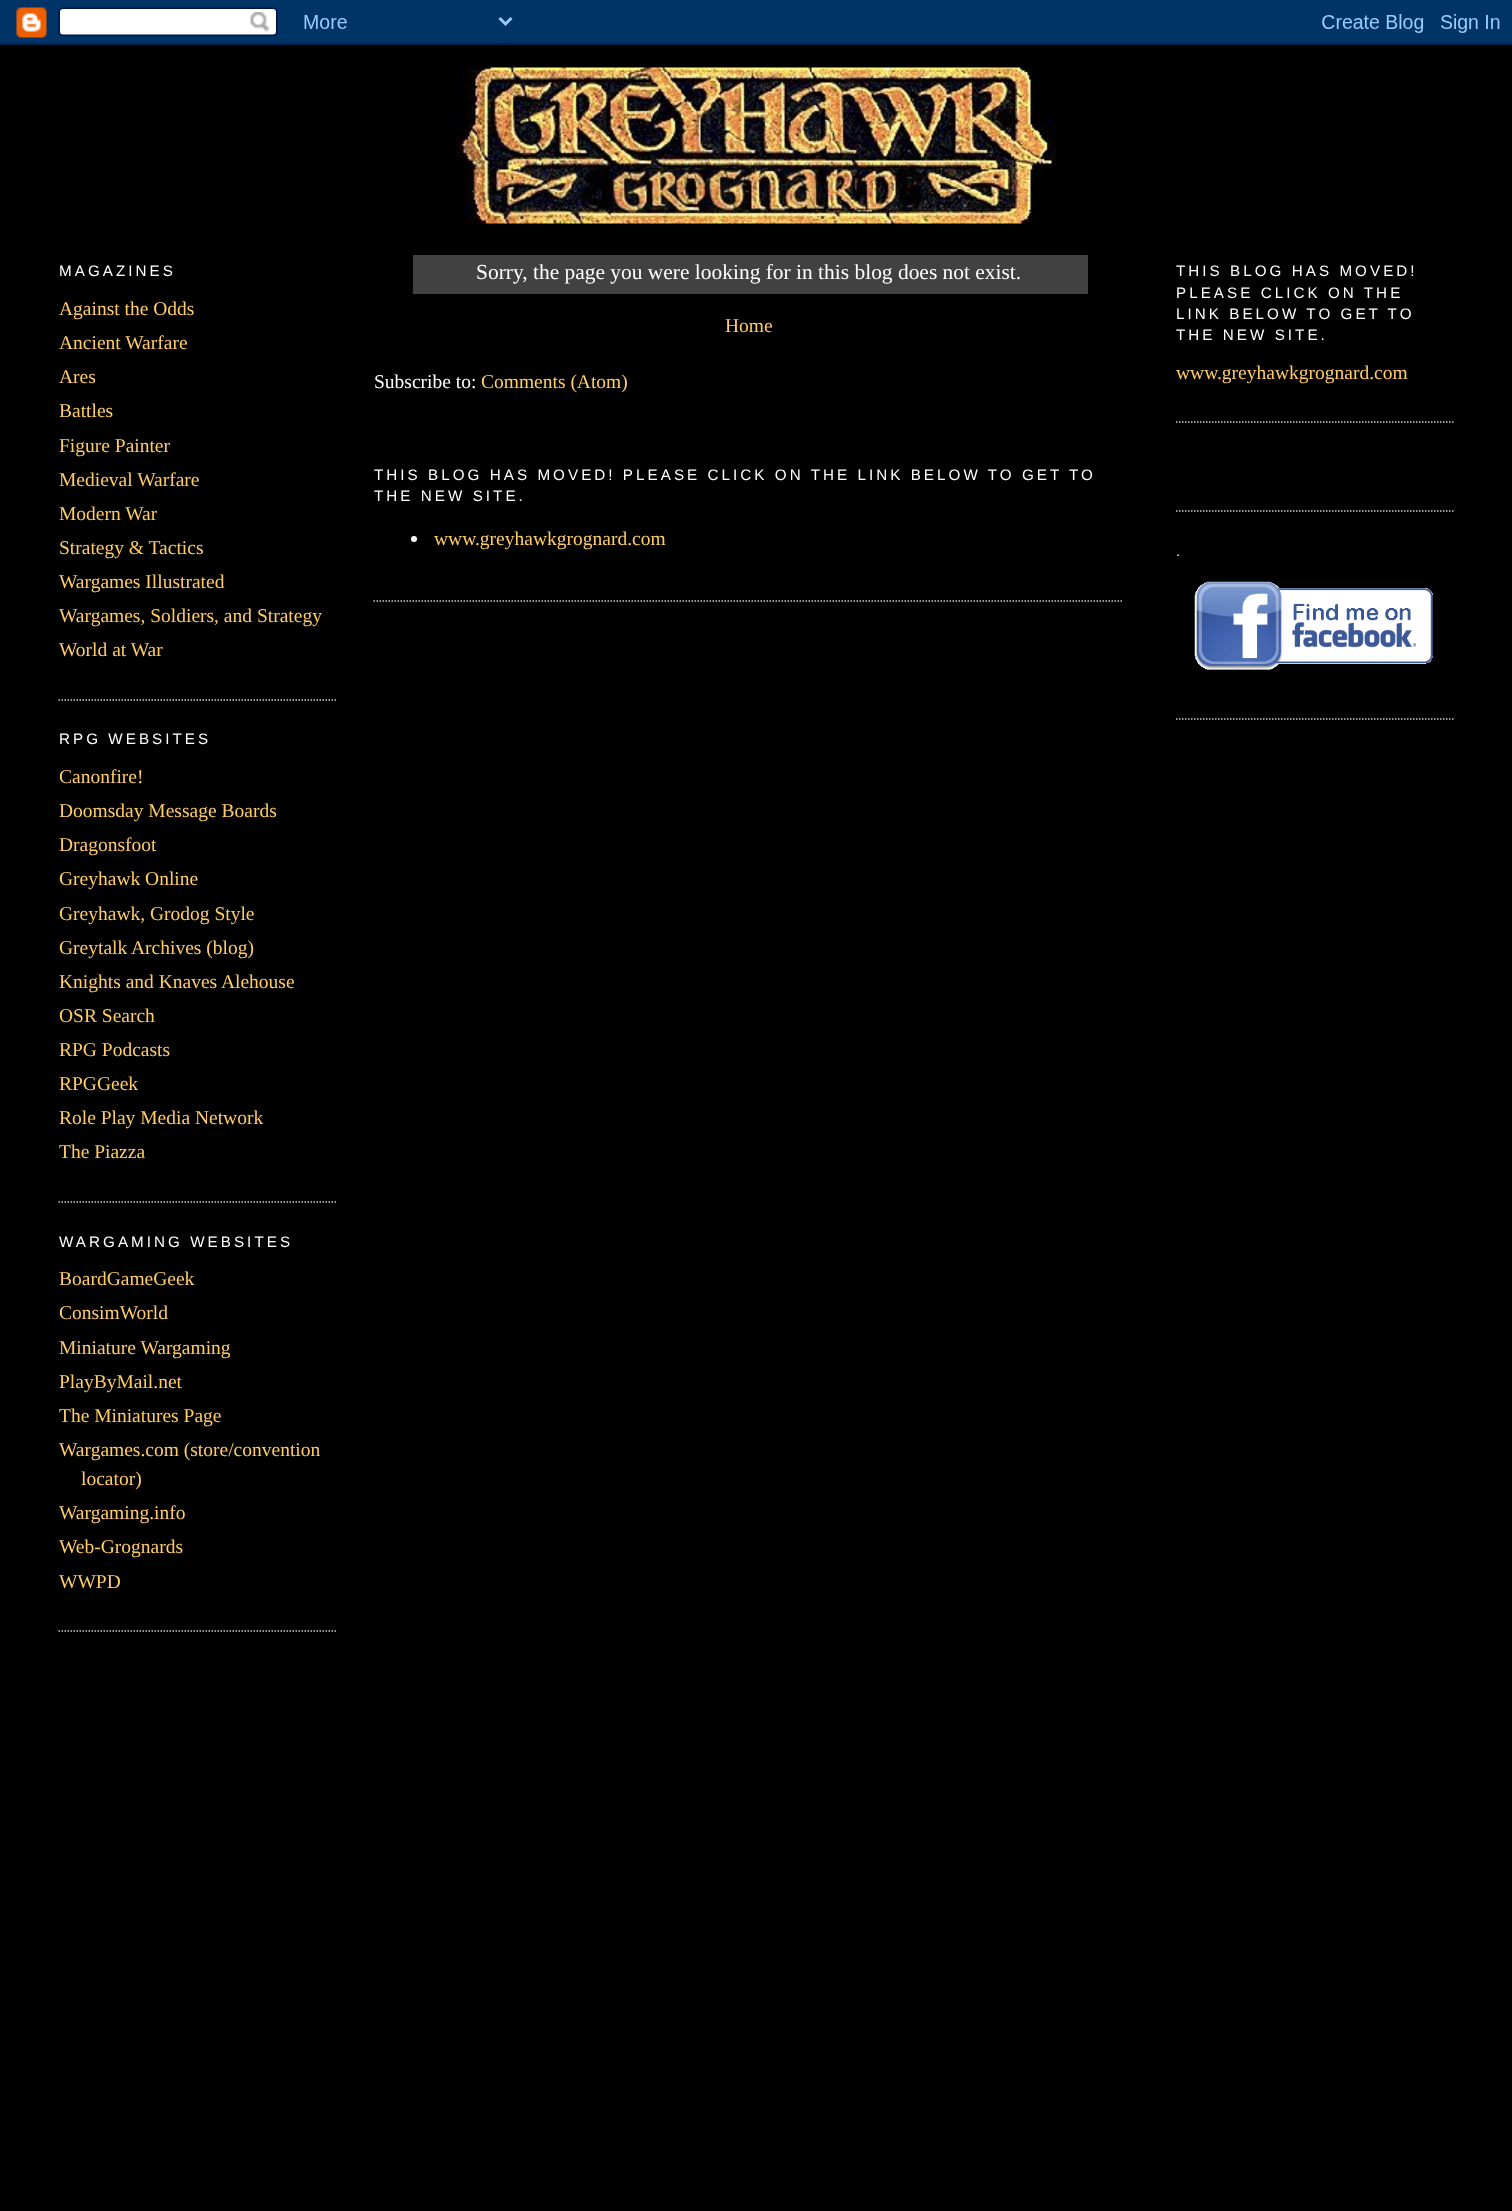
(async () => {
  const canvas = document.querySelector("canvas");
  canvas.width = 1512;
  canvas.height = 2211;
  const ctx = canvas.getContext("2d");
  ctx.miterLimit = 4;
  ctx.fontKerning = "normal";
  async function loadImage(src) {
    const img = new Image();
    img.src = src;
    await img.decode();
    return img;
  }
  let path;

  ctx.fillStyle = "#000000";
  ctx.fillRect(0, 0, 1512, 2211);
  ctx.drawImage(await loadImage("img/1.png"), 0, 0, 1512, 45);
  ctx.drawImage(await loadImage("img/2.png"), 456, 67, 600, 157);
  path = new Path2D("M58.5 700H336");
  ctx.strokeStyle = "#cccccc";
  ctx.lineWidth = 1.5;
  ctx.setLineDash([1.5, 1.5]);
  ctx.stroke(path);
  path = new Path2D("M58.5 1202H336");
  ctx.stroke(path);
  path = new Path2D("M58.5 1631H336");
  ctx.stroke(path);
  ctx.fillStyle = "#414141";
  ctx.fillRect(413, 255, 675, 39);
  path = new Path2D("M373.5 601H1123.5");
  ctx.stroke(path);
  ctx.fillStyle = "#ffffff";
  ctx.beginPath();
  ctx.arc(414, 539, 3, 0, Math.PI * 2);
  ctx.fill();
  path = new Path2D("M1176 422H1453.5");
  ctx.stroke(path);
  path = new Path2D("M1176 511H1453.5");
  ctx.stroke(path);
  path = new Path2D("M1176 719H1453.5");
  ctx.stroke(path);
  ctx.drawImage(await loadImage("img/3.png"), 1194, 581, 239, 89);
  ctx.letterSpacing = "3.05px";
  ctx.font = "15.2px Liberation Sans";
  ctx.fillText("MAGAZINES", 59, 276);
  ctx.letterSpacing = "0px";
  ctx.font = "19.5px Liberation Serif";
  ctx.fillStyle = "#ffcc66";
  for (const [text, x, y] of [
    ["Against the Odds", 59, 315],
    ["Ancient Warfare", 59, 349],
    ["Ares", 59, 383],
    ["Battles", 59, 417],
    ["Figure Painter", 59, 452],
    ["Medieval Warfare", 59, 486],
    ["Modern War", 59, 520],
    ["Strategy & Tactics", 59, 554],
    ["Wargames Illustrated", 59, 588],
    ["Wargames, Soldiers, and Strategy", 59, 622],
    ["World at War", 59, 656],
  ]) {
    ctx.fillText(text, x, y);
  }
  ctx.letterSpacing = "3.05px";
  ctx.font = "15.2px Liberation Sans";
  ctx.fillStyle = "#ffffff";
  ctx.fillText("RPG WEBSITES", 59, 744);
  ctx.letterSpacing = "0px";
  ctx.font = "19.5px Liberation Serif";
  ctx.fillStyle = "#ffcc66";
  for (const [text, x, y] of [
    ["Canonfire!", 59, 783],
    ["Doomsday Message Boards", 59, 817],
    ["Dragonsfoot", 59, 851],
    ["Greyhawk Online", 59, 885],
    ["Greyhawk, Grodog Style", 59, 920],
    ["Greytalk Archives (blog)", 59, 954],
    ["Knights and Knaves Alehouse", 59, 988],
    ["OSR Search", 59, 1022],
    ["RPG Podcasts", 59, 1056],
    ["RPGGeek", 59, 1090],
    ["Role Play Media Network", 59, 1124],
  ]) {
    ctx.fillText(text, x, y);
  }
  ctx.save();
  ctx.beginPath();
  ctx.rect(59, 239, 277, 1422);
  ctx.clip();
  ctx.fillText("The Piazza", 59, 1158);
  ctx.restore();
  ctx.letterSpacing = "3.05px";
  ctx.font = "15.2px Liberation Sans";
  ctx.fillStyle = "#ffffff";
  ctx.fillText("WARGAMING WEBSITES", 59, 1247);
  ctx.letterSpacing = "0px";
  ctx.font = "19.5px Liberation Serif";
  ctx.fillStyle = "#ffcc66";
  for (const [text, x, y] of [
    ["BoardGameGeek", 59, 1285],
    ["ConsimWorld", 59, 1319],
    ["Miniature Wargaming", 59, 1354],
    ["PlayByMail.net", 59, 1388],
  ]) {
    ctx.fillText(text, x, y);
  }
  ctx.save();
  ctx.beginPath();
  ctx.rect(59, 239, 277, 1422);
  ctx.clip();
  ctx.fillText("The Miniatures Page", 59, 1422);
  ctx.restore();
  for (const [text, x, y] of [
    ["Wargames.com (store/convention", 59, 1456],
    ["locator)", 81, 1485],
    ["Wargaming.info", 59, 1519],
    ["Web-Grognards", 59, 1553],
    ["WWPD", 59, 1588],
  ]) {
    ctx.fillText(text, x, y);
  }
  ctx.font = "21.45px Liberation Serif";
  ctx.fillStyle = "#ffffff";
  ctx.fillText("Sorry, the page you were looking for in this blog does not exist.", 476, 279);
  ctx.font = "19.5px Liberation Serif";
  ctx.fillStyle = "#ffcc66";
  ctx.fillText("Home", 725, 332);
  ctx.fillStyle = "#ffffff";
  ctx.fillText("Subscribe to:", 374, 388);
  ctx.fillStyle = "#ffcc66";
  ctx.fillText("Comments (Atom)", 481, 388);
  ctx.letterSpacing = "3.05px";
  ctx.font = "15.2px Liberation Sans";
  ctx.fillStyle = "#ffffff";
  ctx.fillText("THIS BLOG HAS MOVED! PLEASE CLICK ON THE LINK BELOW TO GET TO", 374, 480);
  ctx.fillText("THE NEW SITE.", 374, 501);
  ctx.letterSpacing = "0px";
  ctx.font = "19.5px Liberation Serif";
  ctx.fillStyle = "#ffcc66";
  ctx.fillText("www.greyhawkgrognard.com", 434, 545);
  ctx.letterSpacing = "3.05px";
  ctx.font = "15.2px Liberation Sans";
  ctx.fillStyle = "#ffffff";
  for (const [text, x, y] of [
    ["THIS BLOG HAS MOVED!", 1176, 276],
    ["PLEASE CLICK ON THE", 1176, 298],
    ["LINK BELOW TO GET TO", 1176, 319],
    ["THE NEW SITE.", 1176, 340],
  ]) {
    ctx.fillText(text, x, y);
  }
  ctx.letterSpacing = "0px";
  ctx.font = "19.5px Liberation Serif";
  ctx.fillStyle = "#ffcc66";
  ctx.fillText("www.greyhawkgrognard.com", 1176, 379);
  ctx.letterSpacing = "3.05px";
  ctx.font = "15.2px Liberation Sans";
  ctx.fillStyle = "#ffffff";
  ctx.fillText(".", 1176, 556);
})();
